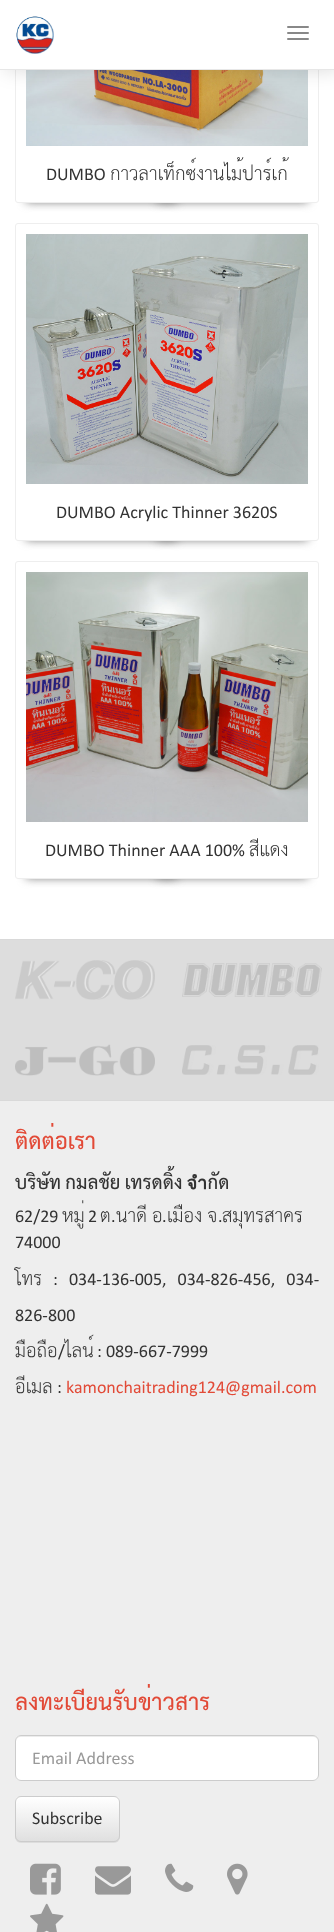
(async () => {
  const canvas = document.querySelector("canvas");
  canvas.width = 334;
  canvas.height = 1932;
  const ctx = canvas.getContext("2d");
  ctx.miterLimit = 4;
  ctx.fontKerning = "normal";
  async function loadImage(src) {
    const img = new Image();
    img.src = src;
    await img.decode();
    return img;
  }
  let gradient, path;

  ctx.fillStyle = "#ffffff";
  ctx.fillRect(0, 0, 334, 1932);
  ctx.fillStyle = "#777777";
  ctx.filter = "blur(5px)";
  ctx.beginPath();
  ctx.rect(26, 154, 151, 48);
  ctx.fill();
  ctx.filter = "none";
  ctx.filter = "blur(5px)";
  ctx.beginPath();
  ctx.rect(157, 154, 151, 48);
  ctx.fill();
  ctx.filter = "none";
  ctx.fillStyle = "#ffffff";
  ctx.beginPath();
  ctx.roundRect(15.5, -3.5, 303, 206, 2.5);
  ctx.fill();
  ctx.strokeStyle = "#eeeeee";
  ctx.stroke();
  ctx.drawImage(await loadImage("img/2.png"), 26, 70, 282, 76);
  ctx.fillStyle = "rgba(0, 0, 0, 0.15)";
  ctx.filter = "blur(10px)";
  ctx.beginPath();
  ctx.rect(5, 0, 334, 70);
  ctx.fill();
  ctx.filter = "none";
  ctx.fillStyle = "#ffffff";
  ctx.fillRect(0, 0, 334, 69);
  ctx.fillStyle = "#e7e7e7";
  ctx.fillRect(0, 69, 334, 1);
  ctx.drawImage(await loadImage("img/1.png"), 16, 16, 38, 38);
  ctx.fillStyle = "#888888";
  ctx.beginPath();
  ctx.roundRect(287, 26, 22, 2, 1);
  ctx.fill();
  ctx.beginPath();
  ctx.roundRect(287, 32, 22, 2, 1);
  ctx.fill();
  ctx.beginPath();
  ctx.roundRect(287, 38, 22, 2, 1);
  ctx.fill();
  ctx.fillStyle = "#777777";
  ctx.filter = "blur(5px)";
  ctx.beginPath();
  ctx.rect(26, 492, 151, 48);
  ctx.fill();
  ctx.filter = "none";
  ctx.filter = "blur(5px)";
  ctx.beginPath();
  ctx.rect(157, 492, 151, 48);
  ctx.fill();
  ctx.filter = "none";
  ctx.fillStyle = "#ffffff";
  ctx.beginPath();
  ctx.roundRect(15.5, 223.5, 303, 317, 2.5);
  ctx.fill();
  ctx.stroke();
  ctx.drawImage(await loadImage("img/3.png"), 26, 234, 282, 250);
  ctx.fillStyle = "#777777";
  ctx.filter = "blur(5px)";
  ctx.beginPath();
  ctx.rect(26, 830, 151, 48);
  ctx.fill();
  ctx.filter = "none";
  ctx.filter = "blur(5px)";
  ctx.beginPath();
  ctx.rect(157, 830, 151, 48);
  ctx.fill();
  ctx.filter = "none";
  ctx.fillStyle = "#ffffff";
  ctx.beginPath();
  ctx.roundRect(15.5, 561.5, 303, 317, 2.5);
  ctx.fill();
  ctx.stroke();
  ctx.drawImage(await loadImage("img/4.png"), 26, 572, 282, 250);
  for (const [x, y, w, h, color] of [
    [0, 940, 334, 160, "#dddddd"],
    [0, 939, 334, 1, "#d9d9d9"],
    [0, 1100, 334, 1, "#d9d9d9"],
  ]) {
    ctx.fillStyle = color;
    ctx.fillRect(x, y, w, h);
  }
  ctx.drawImage(await loadImage("img/5.png"), 15, 960, 140, 40);
  ctx.drawImage(await loadImage("img/6.png"), 182, 963, 140, 34);
  ctx.drawImage(await loadImage("img/7.png"), 15, 1044, 140, 32);
  ctx.drawImage(await loadImage("img/8.png"), 182, 1045, 137, 30);
  ctx.fillStyle = "#eeeeee";
  ctx.fillRect(0, 1101, 334, 831);
  ctx.fillStyle = "#ffffff";
  ctx.beginPath();
  ctx.roundRect(15, 1735, 304, 46, 6);
  ctx.fill();
  ctx.fillStyle = "#ececec";
  path = new Path2D("M21 1737H313C316 1737 318 1739 318 1742V1741C318 1738 316 1736 313 1736H21C18 1736 16 1738 16 1741V1742C16 1739 18 1737 21 1737Z");
  ctx.fill(path);
  ctx.beginPath();
  ctx.roundRect(15.5, 1735.5, 303, 45, 5.5);
  ctx.strokeStyle = "#cccccc";
  ctx.stroke();
  ctx.fillStyle = "rgba(0, 0, 0, 0.07)";
  ctx.filter = "blur(0.5px)";
  ctx.beginPath();
  ctx.roundRect(15, 1797, 105, 46, 6);
  ctx.fill();
  ctx.filter = "none";
  ctx.save();
  ctx.beginPath();
  ctx.roundRect(15, 1796, 105, 46, 6);
  ctx.clip();
  gradient = ctx.createLinearGradient(68, 1797, 68, 1841);
  gradient.addColorStop(0, "#ffffff");
  gradient.addColorStop(1, "#e0e0e0");
  ctx.fillStyle = gradient;
  ctx.fillRect(15, 1797, 105, 44);
  ctx.restore();
  ctx.beginPath();
  ctx.roundRect(15.5, 1796.5, 104, 45, 5.5);
  ctx.stroke();
  ctx.drawImage(await loadImage("img/9.png"), 30, 1863, 31, 32);
  ctx.drawImage(await loadImage("img/10.png"), 95, 1866, 36, 29);
  ctx.drawImage(await loadImage("img/11.png"), 165, 1863, 29, 29);
  ctx.drawImage(await loadImage("img/12.png"), 227, 1863, 21, 32);
  ctx.drawImage(await loadImage("img/13.png"), 30, 1903, 34, 29);
  ctx.font = "18px Calibri";
  ctx.fillStyle = "#333333";
  ctx.fillText("DUMBO", 46, 180);
  ctx.font = "18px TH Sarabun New";
  ctx.fillText("กาวลาเท็กซ์งานไม้ปาร์เก้", 110, 180);
  ctx.font = "18px Calibri";
  ctx.fillText("DUMBO Acrylic Thinner 3620S", 56, 518);
  ctx.fillText("DUMBO Thinner AAA 100%", 45, 856);
  ctx.font = "18px TH Sarabun New";
  ctx.fillText("สีแดง", 249, 856);
  ctx.font = "bold 21.5px TH Sarabun New";
  ctx.fillStyle = "#e24a37";
  ctx.fillText("ติดต่อเรา", 15, 1149);
  ctx.wordSpacing = "-2px";
  ctx.font = "bold 18px TH Sarabun New";
  ctx.fillStyle = "#333333";
  ctx.fillText("บริษัท กมลชัย เทรดดิ้ง จำกัด", 15, 1189);
  ctx.wordSpacing = "0px";
  ctx.font = "18px Calibri";
  ctx.fillText("62/29", 15, 1222);
  ctx.font = "18px TH Sarabun New";
  ctx.fillText("หมู่", 62, 1222);
  ctx.font = "18px Calibri";
  ctx.fillText("2", 88, 1222);
  ctx.font = "18px TH Sarabun New";
  ctx.fillText("ต", 100, 1222);
  ctx.font = "18px Calibri";
  ctx.fillText(".", 111, 1222);
  ctx.wordSpacing = "-1px";
  ctx.font = "18px TH Sarabun New";
  ctx.fillText("นาดี อ", 116, 1222);
  ctx.wordSpacing = "0px";
  ctx.fillText("สมุทรสาคร", 222, 1222);
  ctx.font = "18px Calibri";
  ctx.fillText(".", 162, 1222);
  ctx.wordSpacing = "-1px";
  ctx.font = "18px TH Sarabun New";
  ctx.fillText("เมือง จ", 167, 1222);
  ctx.wordSpacing = "0px";
  ctx.font = "18px Calibri";
  ctx.fillText(".", 218, 1222);
  ctx.fillText("74000", 15, 1248);
  ctx.font = "18px TH Sarabun New";
  ctx.fillText("โทร", 15, 1285);
  ctx.wordSpacing = "7px";
  ctx.font = "18px Calibri";
  ctx.fillText(": 034-136-005, 034-826-456, 034-", 53, 1285);
  ctx.wordSpacing = "0px";
  ctx.fillText("826-800", 15, 1321);
  ctx.font = "18px TH Sarabun New";
  ctx.fillText("มือถือ", 15, 1357);
  ctx.font = "18px Calibri";
  ctx.fillText("/", 58, 1357);
  ctx.font = "18px TH Sarabun New";
  ctx.fillText("ไลน์", 65, 1357);
  ctx.font = "18px Calibri";
  ctx.fillText(": 089-667-7999", 97, 1357);
  ctx.font = "18px TH Sarabun New";
  ctx.fillText("อีเมล", 15, 1393);
  ctx.font = "18px Calibri";
  ctx.fillText(":", 57, 1393);
  ctx.fillStyle = "#e24a37";
  ctx.fillText("kamonchaitrading124@gmail.com", 66, 1393);
  ctx.font = "bold 21.5px TH Sarabun New";
  ctx.fillText("ลงทะเบียนรับข่าวสาร", 15, 1710);
  ctx.font = "18px Calibri";
  ctx.fillStyle = "#999999";
  ctx.fillText("Email Address", 32, 1764);
  ctx.fillStyle = "#333333";
  ctx.fillText("Subscribe", 32, 1824);
})();
